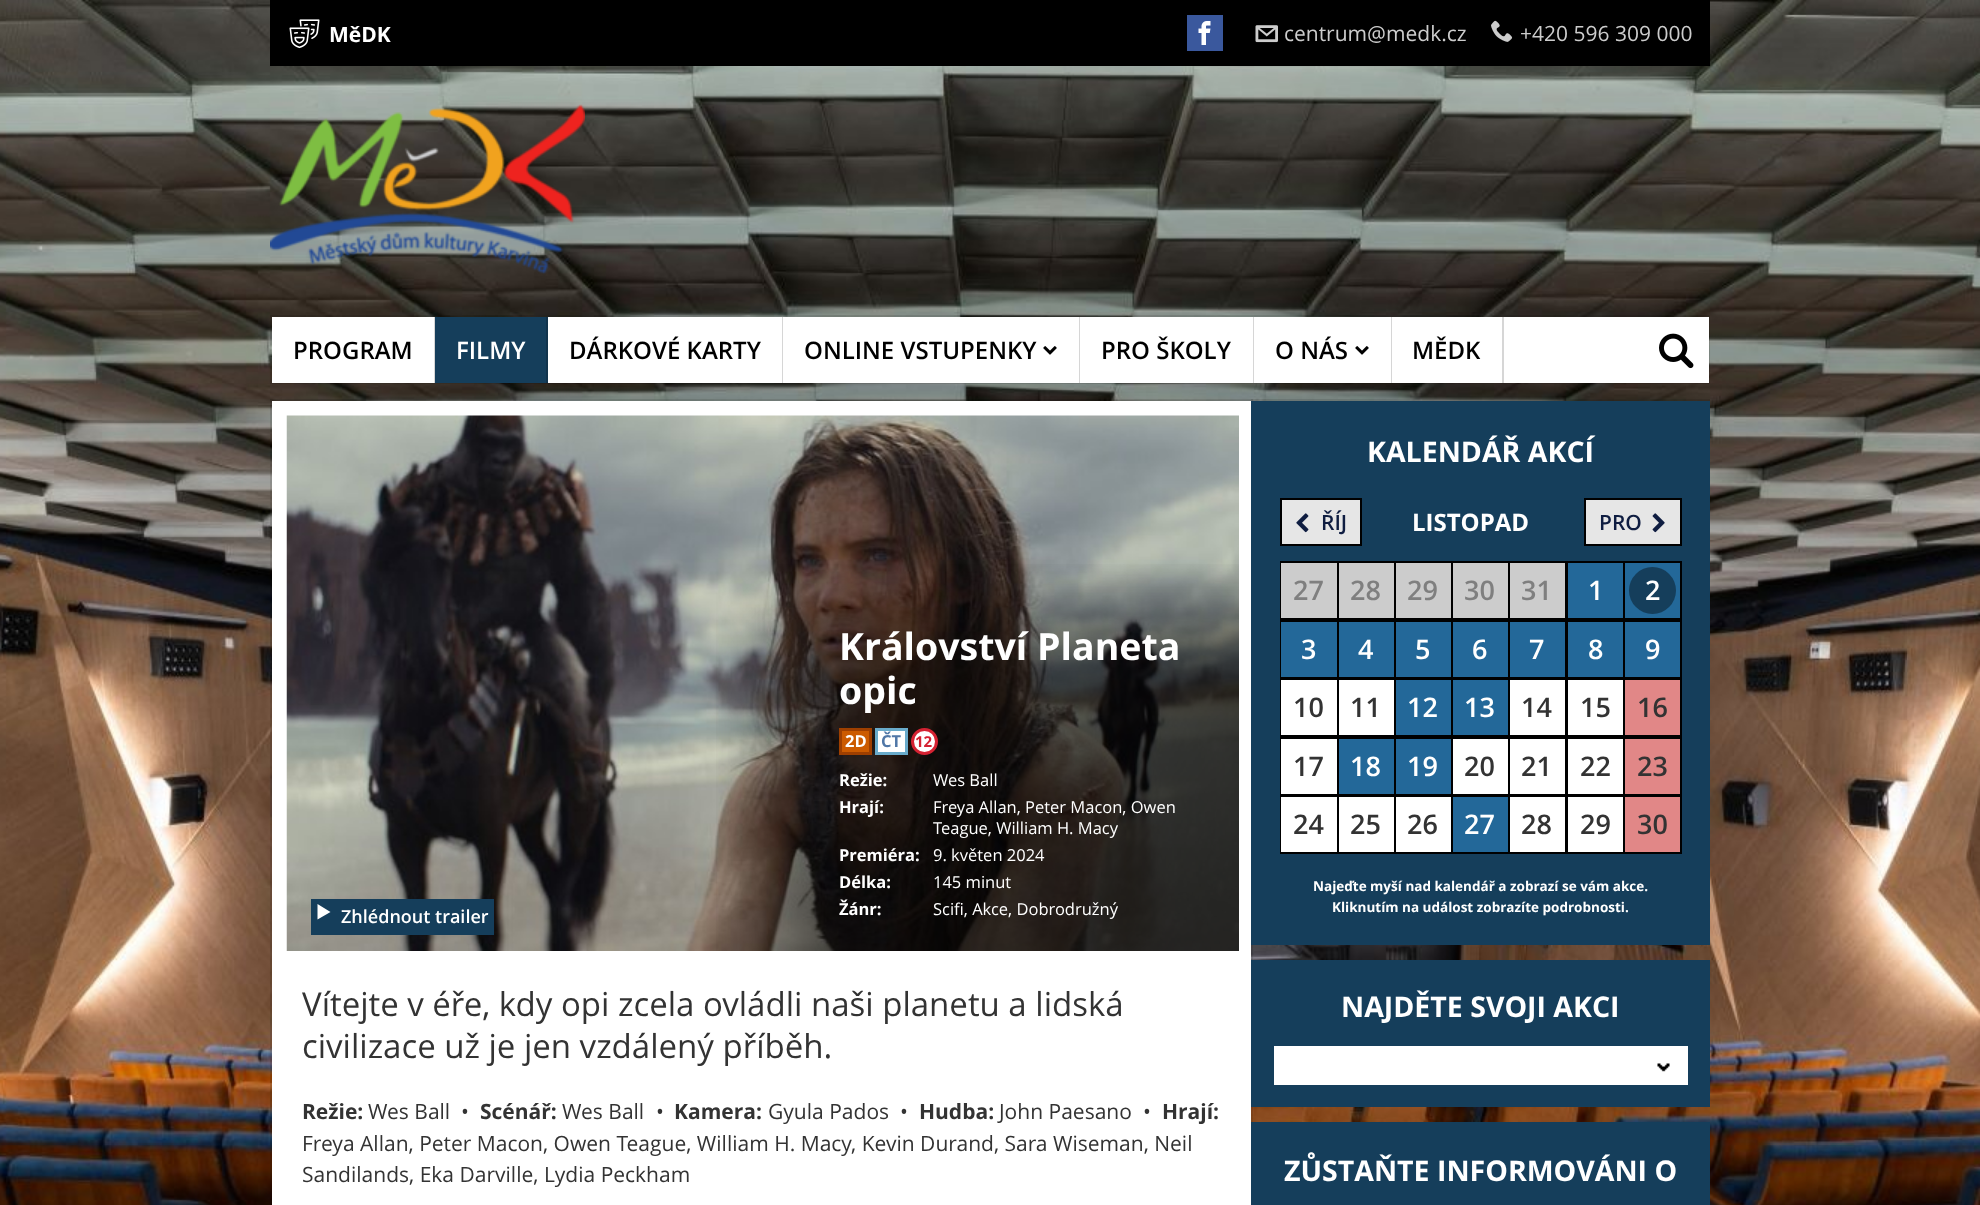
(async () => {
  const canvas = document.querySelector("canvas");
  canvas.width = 1980;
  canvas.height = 1205;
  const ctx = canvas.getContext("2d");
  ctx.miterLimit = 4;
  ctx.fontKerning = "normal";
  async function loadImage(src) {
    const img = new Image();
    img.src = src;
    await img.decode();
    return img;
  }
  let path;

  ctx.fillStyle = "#ffffff";
  ctx.fillRect(0, 0, 1980, 1205);
  ctx.drawImage(await loadImage("img/1.png"), 0, 0, 1980, 1205);
  ctx.fillStyle = "#000000";
  ctx.fillRect(270, 0, 1440, 66);
  ctx.drawImage(await loadImage("img/2.png"), 289, 19, 31, 30);
  ctx.fillStyle = "#3a589d";
  ctx.fillRect(1187, 15, 36, 36);
  ctx.drawImage(await loadImage("img/3.png"), 1198, 21, 13, 24);
  ctx.drawImage(await loadImage("img/4.png"), 1255, 25, 23, 18);
  ctx.drawImage(await loadImage("img/5.png"), 1491, 20, 22, 22);
  ctx.drawImage(await loadImage("img/6.png"), 270, 104, 315, 170);
  ctx.strokeStyle = "rgba(0, 0, 0, 0.1)";
  ctx.lineWidth = 2;
  ctx.strokeRect(271, 316, 1438, 67);
  for (const [x, y, w, h, color] of [
    [272, 317, 1437, 66, "#ffffff"],
    [434, 317, 1, 66, "#d6d6d6"],
    [435, 317, 111, 66, "#153e5b"],
    [546, 317, 2, 66, "#12344c"],
    [782, 317, 1, 66, "#d6d6d6"],
    [1079, 317, 1, 66, "#d6d6d6"],
  ]) {
    ctx.fillStyle = color;
    ctx.fillRect(x, y, w, h);
  }
  ctx.drawImage(await loadImage("img/7.png"), 1043, 346, 14, 9);
  ctx.fillRect(1253, 317, 1, 66);
  ctx.fillRect(1391, 317, 1, 66);
  ctx.drawImage(await loadImage("img/7.png"), 1355, 346, 14, 9);
  ctx.fillRect(1502, 317, 2, 66);
  ctx.drawImage(await loadImage("img/8.png"), 1659, 333, 35, 36);
  ctx.fillStyle = "rgba(0, 0, 0, 0.1)";
  ctx.fillRect(1251, 399, 459, 2);
  ctx.strokeRect(271, 400, 981, 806);
  ctx.fillStyle = "#ffffff";
  ctx.fillRect(272, 401, 979, 804);
  ctx.drawImage(await loadImage("img/9.png"), 286, 415, 953, 536);
  ctx.drawImage(await loadImage("img/10.png"), 716, 564, 523, 387);
  ctx.fillStyle = "#153e5b";
  ctx.fillRect(311, 899, 183, 36);
  ctx.fillStyle = "#ffffff";
  path = new Path2D("M317.5 904L330.5 912L317.5 919.5Z");
  ctx.fill(path);
  ctx.fillStyle = "#cc5b00";
  ctx.beginPath();
  ctx.rect(840.5, 729.5, 30, 24);
  ctx.fill();
  ctx.strokeStyle = "#9e3f00";
  ctx.lineWidth = 3;
  ctx.stroke();
  ctx.fillStyle = "#ffffff";
  ctx.beginPath();
  ctx.rect(876.5, 729.5, 30, 24);
  ctx.fill();
  ctx.strokeStyle = "#69abcb";
  ctx.stroke();
  ctx.beginPath();
  ctx.arc(924.5, 741.5, 12, 0, Math.PI * 2);
  ctx.fill();
  ctx.strokeStyle = "#d52232";
  ctx.stroke();
  ctx.fillStyle = "#153e5b";
  ctx.fillRect(1251, 401, 459, 544);
  ctx.fillStyle = "#e6e6e6";
  ctx.beginPath();
  ctx.rect(1281, 499, 80, 46);
  ctx.fill();
  ctx.strokeStyle = "#000000";
  ctx.lineWidth = 2;
  ctx.stroke();
  ctx.drawImage(await loadImage("img/11.png"), 1296, 513, 13, 20);
  ctx.beginPath();
  ctx.rect(1585, 499, 96, 46);
  ctx.fill();
  ctx.stroke();
  ctx.drawImage(await loadImage("img/12.png"), 1652, 513, 13, 20);
  ctx.strokeRect(1281, 562, 400, 291);
  for (const [x, y, w, h, color] of [
    [1281, 563, 56, 55, "#cccccc"],
    [1281, 618, 399, 2, "#000000"],
    [1339, 563, 55, 55, "#cccccc"],
    [1337, 563, 2, 57, "#000000"],
    [1396, 563, 55, 55, "#cccccc"],
    [1394, 563, 2, 57, "#000000"],
    [1453, 563, 55, 55, "#cccccc"],
    [1451, 563, 2, 57, "#000000"],
    [1510, 563, 55, 55, "#cccccc"],
    [1508, 563, 2, 57, "#000000"],
    [1568, 563, 55, 55, "#236899"],
    [1565, 563, 3, 57, "#000000"],
    [1625, 563, 55, 55, "#236899"],
    [1623, 563, 2, 57, "#000000"],
  ]) {
    ctx.fillStyle = color;
    ctx.fillRect(x, y, w, h);
  }
  ctx.fillStyle = "#153e5b";
  ctx.beginPath();
  ctx.arc(1652.5, 590.5, 23.5, 0, Math.PI * 2);
  ctx.fill();
  for (const [x, y, w, h, color] of [
    [1281, 622, 56, 55, "#236899"],
    [1281, 620, 399, 2, "#000000"],
    [1281, 677, 399, 1, "#000000"],
    [1339, 622, 55, 55, "#236899"],
    [1337, 620, 2, 58, "#000000"],
    [1396, 622, 55, 55, "#236899"],
    [1394, 620, 2, 58, "#000000"],
    [1453, 622, 55, 55, "#236899"],
    [1451, 620, 2, 58, "#000000"],
    [1510, 622, 55, 55, "#236899"],
    [1508, 620, 2, 58, "#000000"],
    [1568, 622, 55, 55, "#236899"],
    [1565, 620, 3, 58, "#000000"],
    [1625, 622, 55, 55, "#236899"],
    [1623, 620, 2, 58, "#000000"],
    [1281, 680, 56, 55, "#ffffff"],
    [1281, 678, 399, 2, "#000000"],
    [1281, 735, 399, 2, "#000000"],
    [1339, 680, 55, 55, "#ffffff"],
    [1337, 678, 2, 59, "#000000"],
    [1396, 680, 55, 55, "#236899"],
    [1394, 678, 2, 59, "#000000"],
    [1453, 680, 55, 55, "#236899"],
    [1451, 678, 2, 59, "#000000"],
    [1510, 680, 55, 55, "#ffffff"],
    [1508, 678, 2, 59, "#000000"],
    [1568, 680, 55, 55, "#ffffff"],
    [1565, 678, 3, 59, "#000000"],
    [1625, 680, 55, 55, "#e18787"],
    [1623, 678, 2, 59, "#000000"],
    [1281, 739, 56, 55, "#ffffff"],
    [1281, 737, 399, 2, "#000000"],
    [1281, 794, 399, 1, "#000000"],
    [1339, 739, 55, 55, "#236899"],
    [1337, 737, 2, 58, "#000000"],
    [1396, 739, 55, 55, "#236899"],
    [1394, 737, 2, 58, "#000000"],
    [1453, 739, 55, 55, "#ffffff"],
    [1451, 737, 2, 58, "#000000"],
    [1510, 739, 55, 55, "#ffffff"],
    [1508, 737, 2, 58, "#000000"],
    [1568, 739, 55, 55, "#ffffff"],
    [1565, 737, 3, 58, "#000000"],
    [1625, 739, 55, 55, "#e18787"],
    [1623, 737, 2, 58, "#000000"],
    [1281, 797, 56, 55, "#ffffff"],
    [1281, 795, 399, 2, "#000000"],
    [1339, 797, 55, 55, "#ffffff"],
    [1337, 795, 2, 57, "#000000"],
    [1396, 797, 55, 55, "#ffffff"],
    [1394, 795, 2, 57, "#000000"],
    [1453, 797, 55, 55, "#236899"],
    [1451, 795, 2, 57, "#000000"],
    [1510, 797, 55, 55, "#ffffff"],
    [1508, 795, 2, 57, "#000000"],
    [1568, 797, 55, 55, "#ffffff"],
    [1565, 795, 3, 57, "#000000"],
    [1625, 797, 55, 55, "#e18787"],
    [1623, 795, 2, 57, "#000000"],
    [1251, 960, 459, 147, "#153e5b"],
    [1274, 1046, 414, 39, "#ffffff"],
  ]) {
    ctx.fillStyle = color;
    ctx.fillRect(x, y, w, h);
  }
  ctx.drawImage(await loadImage("img/13.png"), 1657, 1063, 13, 9);
  ctx.fillStyle = "#153e5b";
  ctx.fillRect(1251, 1122, 459, 83);
  ctx.font = "bold 21px Open Sans";
  ctx.fillStyle = "#ffffff";
  ctx.fillText("MěDK", 329, 42);
  ctx.font = "21px Open Sans";
  ctx.fillStyle = "#cccccc";
  ctx.fillText("centrum@medk.cz", 1284, 41);
  ctx.fillText("+420 596 309 000", 1520, 41);
  ctx.font = "600 24px Open Sans";
  ctx.fillStyle = "#000000";
  ctx.fillText("PROGRAM", 293, 359);
  ctx.fillStyle = "#ffffff";
  ctx.fillText("FILMY", 456, 359);
  ctx.fillStyle = "#000000";
  for (const [text, x, y] of [
    ["DÁRKOVÉ KARTY", 569, 359],
    ["ONLINE VSTUPENKY", 804, 359],
    ["PRO ŠKOLY", 1101, 359],
    ["O NÁS", 1275, 359],
    ["MĚDK", 1412, 359],
  ]) {
    ctx.fillText(text, x, y);
  }
  ctx.font = "600 18px Open Sans";
  ctx.fillStyle = "#ffffff";
  ctx.fillText("Zhlédnout trailer", 341, 923);
  ctx.font = "bold 37.5px Open Sans";
  ctx.fillText("Království Planeta", 839, 660);
  ctx.fillText("opic", 839, 704);
  ctx.font = "bold 16.5px Open Sans";
  ctx.fillText("2D", 845, 747);
  ctx.fillStyle = "#5077a7";
  ctx.fillText("ČT", 881, 747);
  ctx.font = "bold 15px Open Sans";
  ctx.fillStyle = "#d52232";
  ctx.fillText("12", 915, 747);
  ctx.font = "bold 16.5px Open Sans";
  ctx.fillStyle = "#ffffff";
  ctx.fillText("Režie:", 839, 786);
  ctx.font = "16.5px Open Sans";
  ctx.fillText("Wes Ball", 933, 786);
  ctx.font = "bold 16.5px Open Sans";
  ctx.fillText("Hrají:", 839, 813);
  ctx.font = "16.5px Open Sans";
  ctx.fillText("Freya Allan, Peter Macon, Owen", 933, 813);
  ctx.fillText("Teague, William H. Macy", 933, 834);
  ctx.font = "bold 16.5px Open Sans";
  ctx.fillText("Premiéra:", 839, 861);
  ctx.font = "16.5px Open Sans";
  ctx.fillText("9. květen 2024", 933, 861);
  ctx.font = "bold 16.5px Open Sans";
  ctx.fillText("Délka:", 839, 888);
  ctx.font = "16.5px Open Sans";
  ctx.fillText("145 minut", 933, 888);
  ctx.font = "bold 16.5px Open Sans";
  ctx.fillText("Žánr:", 839, 915);
  ctx.font = "16.5px Open Sans";
  ctx.fillText("Scifi, Akce, Dobrodružný", 933, 915);
  ctx.font = "33px Open Sans";
  ctx.fillStyle = "#333333";
  ctx.fillText("Vítejte v éře, kdy opi zcela ovládli naši planetu a lidská", 302, 1016);
  ctx.fillText("civilizace už je jen vzdálený příběh.", 302, 1058);
  ctx.font = "bold 21px Open Sans";
  ctx.fillText("Režie:", 302, 1119);
  ctx.font = "21px Open Sans";
  ctx.fillText("Wes Ball", 368, 1119);
  ctx.fillText("•", 461, 1119);
  ctx.font = "bold 21px Open Sans";
  ctx.fillText("Scénář:", 480, 1119);
  ctx.font = "21px Open Sans";
  ctx.fillText("Wes Ball", 562, 1119);
  ctx.fillText("•", 656, 1119);
  ctx.font = "bold 21px Open Sans";
  ctx.fillText("Kamera:", 674, 1119);
  ctx.font = "21px Open Sans";
  ctx.fillText("Gyula Pados", 768, 1119);
  ctx.fillText("•", 900, 1119);
  ctx.font = "bold 21px Open Sans";
  ctx.fillText("Hudba:", 919, 1119);
  ctx.font = "21px Open Sans";
  ctx.fillText("John Paesano", 999, 1119);
  ctx.fillText("•", 1143, 1119);
  ctx.font = "bold 21px Open Sans";
  ctx.fillText("Hrají:", 1162, 1119);
  ctx.font = "21px Open Sans";
  ctx.fillText("Freya Allan, Peter Macon, Owen Teague, William H. Macy, Kevin Durand, Sara Wiseman, Neil", 302, 1151);
  ctx.fillText("Sandilands, Eka Darville, Lydia Peckham", 302, 1182);
  ctx.font = "bold 28.5px Open Sans";
  ctx.fillStyle = "#ffffff";
  ctx.fillText("KALENDÁŘ AKCÍ", 1367, 462);
  ctx.font = "600 21px Open Sans";
  ctx.fillStyle = "#0f1d41";
  ctx.fillText("ŘÍJ", 1321, 530);
  ctx.font = "bold 24px Open Sans";
  ctx.fillStyle = "#ffffff";
  ctx.fillText("LISTOPAD", 1412, 531);
  ctx.font = "600 21px Open Sans";
  ctx.fillStyle = "#0f1d41";
  ctx.fillText("PRO", 1599, 530);
  ctx.font = "600 27px Open Sans";
  ctx.fillStyle = "#7f7f7f";
  for (const [text, x, y] of [
    ["27", 1293, 600],
    ["28", 1350, 600],
    ["29", 1407, 600],
    ["30", 1464, 600],
    ["31", 1521, 600],
  ]) {
    ctx.fillText(text, x, y);
  }
  ctx.fillStyle = "#ffffff";
  for (const [text, x, y] of [
    ["1", 1588, 600],
    ["2", 1645, 600],
    ["3", 1301, 659],
    ["4", 1358, 659],
    ["5", 1415, 659],
    ["6", 1472, 659],
    ["7", 1529, 659],
    ["8", 1588, 659],
    ["9", 1645, 659],
  ]) {
    ctx.fillText(text, x, y);
  }
  ctx.fillStyle = "#333333";
  ctx.fillText("10", 1293, 717);
  ctx.fillText("11", 1350, 717);
  ctx.fillStyle = "#ffffff";
  ctx.fillText("12", 1407, 717);
  ctx.fillText("13", 1464, 717);
  ctx.fillStyle = "#333333";
  for (const [text, x, y] of [
    ["14", 1521, 717],
    ["15", 1580, 717],
    ["16", 1637, 717],
    ["17", 1293, 776],
  ]) {
    ctx.fillText(text, x, y);
  }
  ctx.fillStyle = "#ffffff";
  ctx.fillText("18", 1350, 776);
  ctx.fillText("19", 1407, 776);
  ctx.fillStyle = "#333333";
  for (const [text, x, y] of [
    ["20", 1464, 776],
    ["21", 1521, 776],
    ["22", 1580, 776],
    ["23", 1637, 776],
    ["24", 1293, 834],
    ["25", 1350, 834],
    ["26", 1407, 834],
  ]) {
    ctx.fillText(text, x, y);
  }
  ctx.fillStyle = "#ffffff";
  ctx.fillText("27", 1464, 834);
  ctx.fillStyle = "#333333";
  for (const [text, x, y] of [
    ["28", 1521, 834],
    ["29", 1580, 834],
    ["30", 1637, 834],
  ]) {
    ctx.fillText(text, x, y);
  }
  ctx.font = "bold 13.5px Open Sans";
  ctx.fillStyle = "#ffffff";
  ctx.fillText("Najeďte myší nad kalendář a zobrazí se vám akce.", 1313, 891);
  ctx.fillText("Kliknutím na událost zobrazíte podrobnosti.", 1332, 912);
  ctx.font = "bold 28.5px Open Sans";
  ctx.fillText("NAJDĚTE SVOJI AKCI", 1341, 1017);
  ctx.fillText("ZŮSTAŇTE INFORMOVÁNI O", 1284, 1181);
})();
